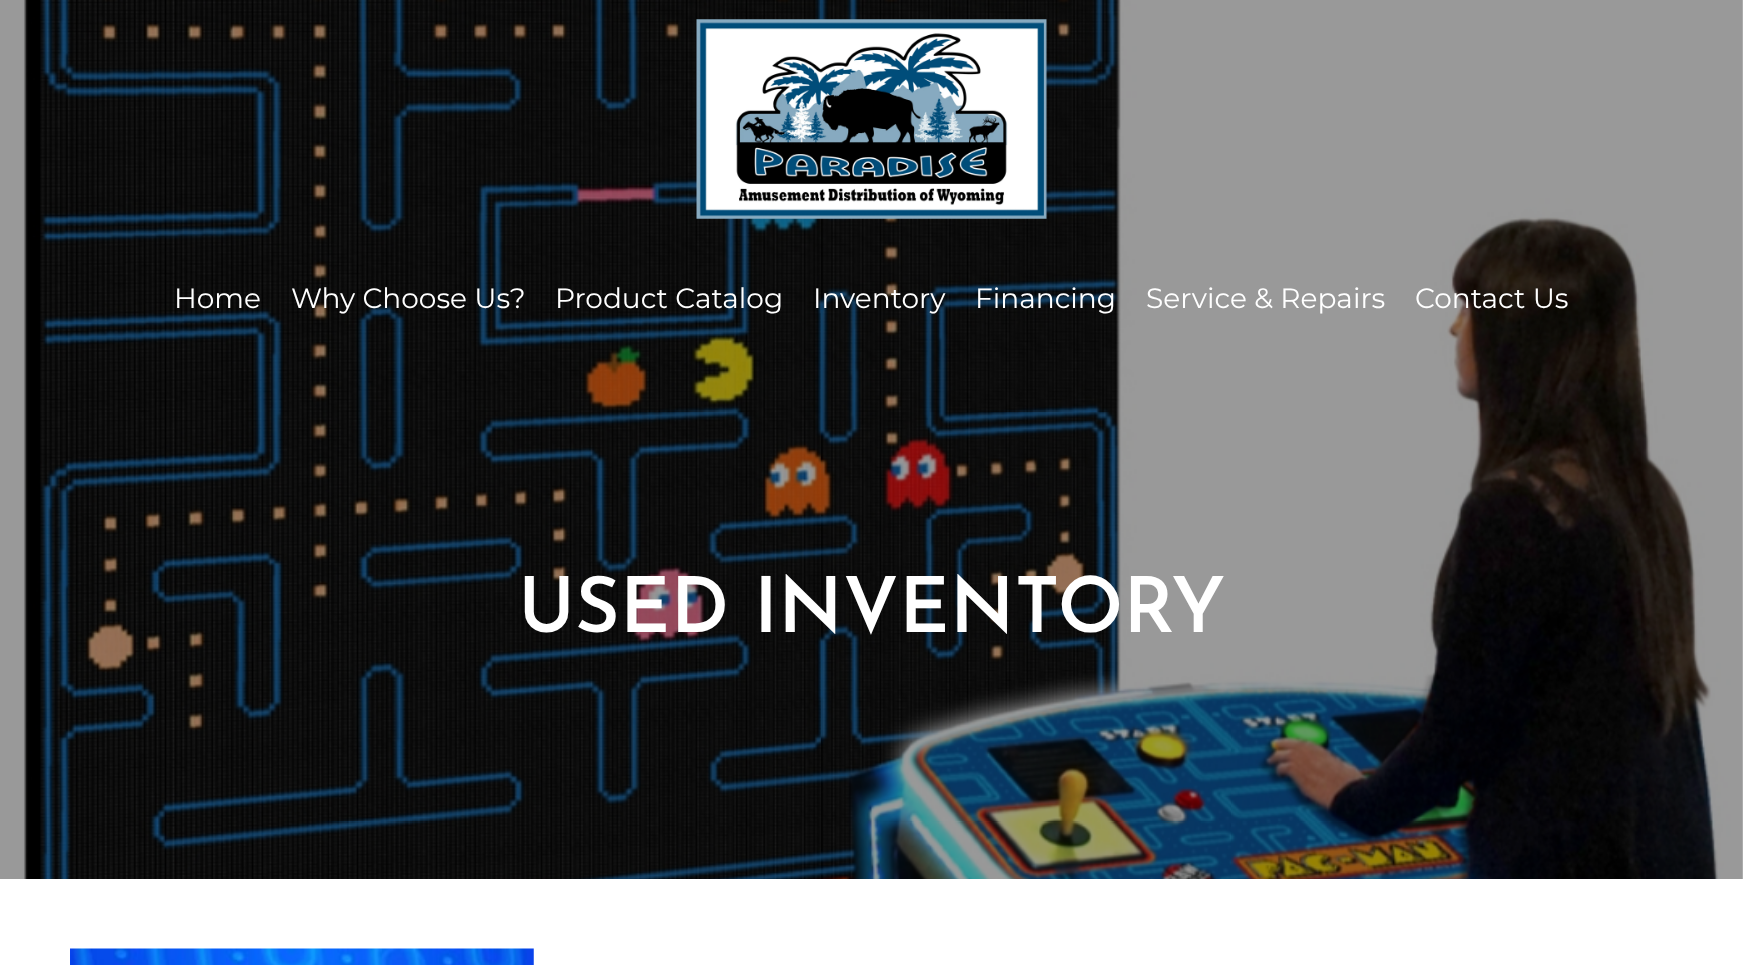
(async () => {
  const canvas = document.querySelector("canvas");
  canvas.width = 1743;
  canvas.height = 965;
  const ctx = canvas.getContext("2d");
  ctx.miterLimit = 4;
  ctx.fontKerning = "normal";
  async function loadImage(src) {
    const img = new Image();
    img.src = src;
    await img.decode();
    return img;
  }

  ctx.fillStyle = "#ffffff";
  ctx.fillRect(0, 0, 1743, 965);
  ctx.drawImage(await loadImage("img/2.png"), 0, 0, 1743, 879);
  ctx.drawImage(await loadImage("img/1.png"), 696, 19, 351, 200);
  ctx.drawImage(await loadImage("img/3.png"), 70, 948, 464, 17);
  ctx.font = "28px Montserrat";
  for (const [text, x, y] of [
    ["Home", 174, 308],
    ["Why Choose Us?", 291, 308],
    ["Product Catalog", 555, 308],
    ["Inventory", 813, 308],
    ["Financing", 975, 308],
    ["Service & Repairs", 1146, 308],
    ["Contact Us", 1415, 308],
  ]) {
    ctx.fillText(text, x, y);
  }
  ctx.font = "600 77px Josefin Sans";
  ctx.fillText("USED INVENTORY", 518, 632);
})();
